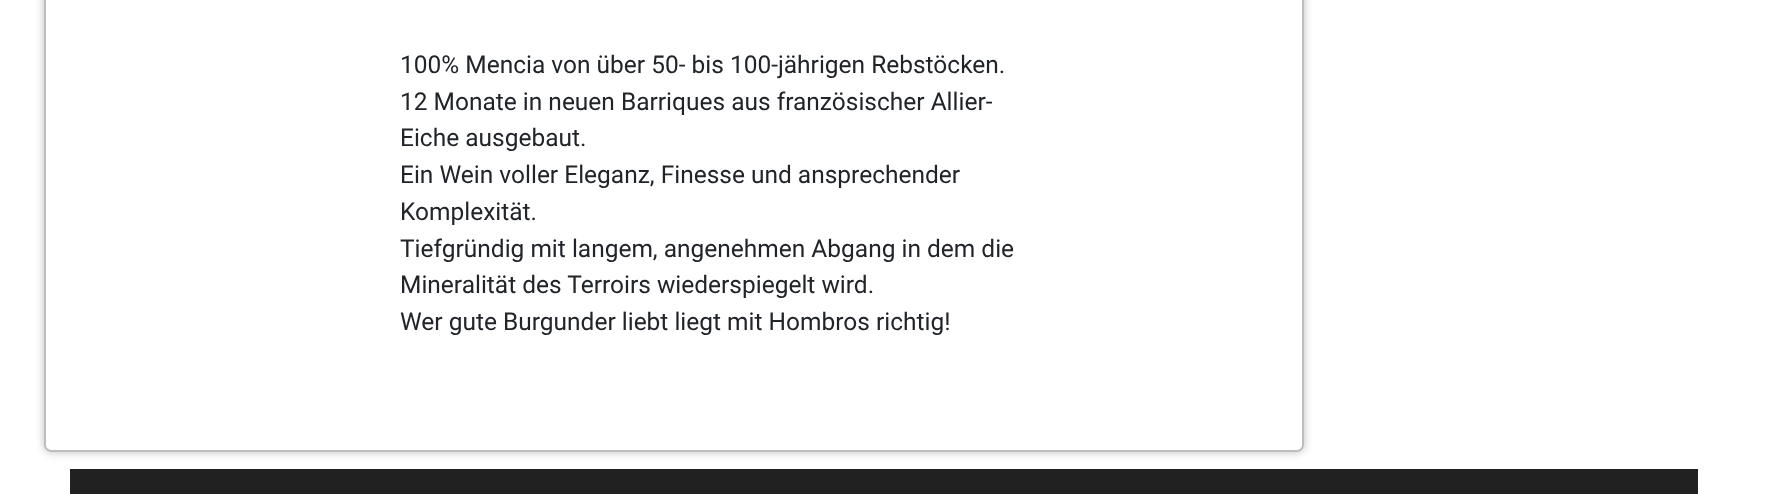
(async () => {
  const canvas = document.querySelector("canvas");
  canvas.width = 1766;
  canvas.height = 494;
  const ctx = canvas.getContext("2d");
  ctx.miterLimit = 4;
  ctx.fontKerning = "normal";
  let path;

  ctx.fillStyle = "#ffffff";
  ctx.fillRect(0, 0, 1766, 494);
  ctx.save();
  path = new Path2D("M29 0H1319V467H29ZM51-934H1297C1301-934 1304-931 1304-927V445C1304 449 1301 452 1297 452H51C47 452 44 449 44 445V-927C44-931 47-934 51-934Z");
  ctx.clip(path, "evenodd");
  ctx.fillStyle = "#bdbdbd";
  ctx.filter = "blur(4.5px)";
  ctx.beginPath();
  ctx.roundRect(44, -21, 1260, 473, 7);
  ctx.fill();
  ctx.filter = "none";
  ctx.restore();
  ctx.beginPath();
  ctx.roundRect(45, -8, 1258, 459, 6);
  ctx.strokeStyle = "#bdbdbd";
  ctx.lineWidth = 2;
  ctx.stroke();
  ctx.fillStyle = "#212121";
  ctx.fillRect(70, 469, 1628, 25);
  ctx.font = "24.5px Roboto";
  ctx.fillStyle = "#212529";
  for (const [text, x, y] of [
    ["100% Mencia von über 50- bis 100-jährigen Rebstöcken.", 400, 73],
    ["12 Monate in neuen Barriques aus französischer Allier-", 400, 110],
    ["Eiche ausgebaut.", 400, 146],
    ["Ein Wein voller Eleganz, Finesse und ansprechender", 400, 183],
    ["Komplexität.", 400, 220],
    ["Tiefgründig mit langem, angenehmen Abgang in dem die", 400, 257],
    ["Mineralität des Terroirs wiederspiegelt wird.", 400, 293],
    ["Wer gute Burgunder liebt liegt mit Hombros richtig!", 400, 330],
  ]) {
    ctx.fillText(text, x, y);
  }
})();
